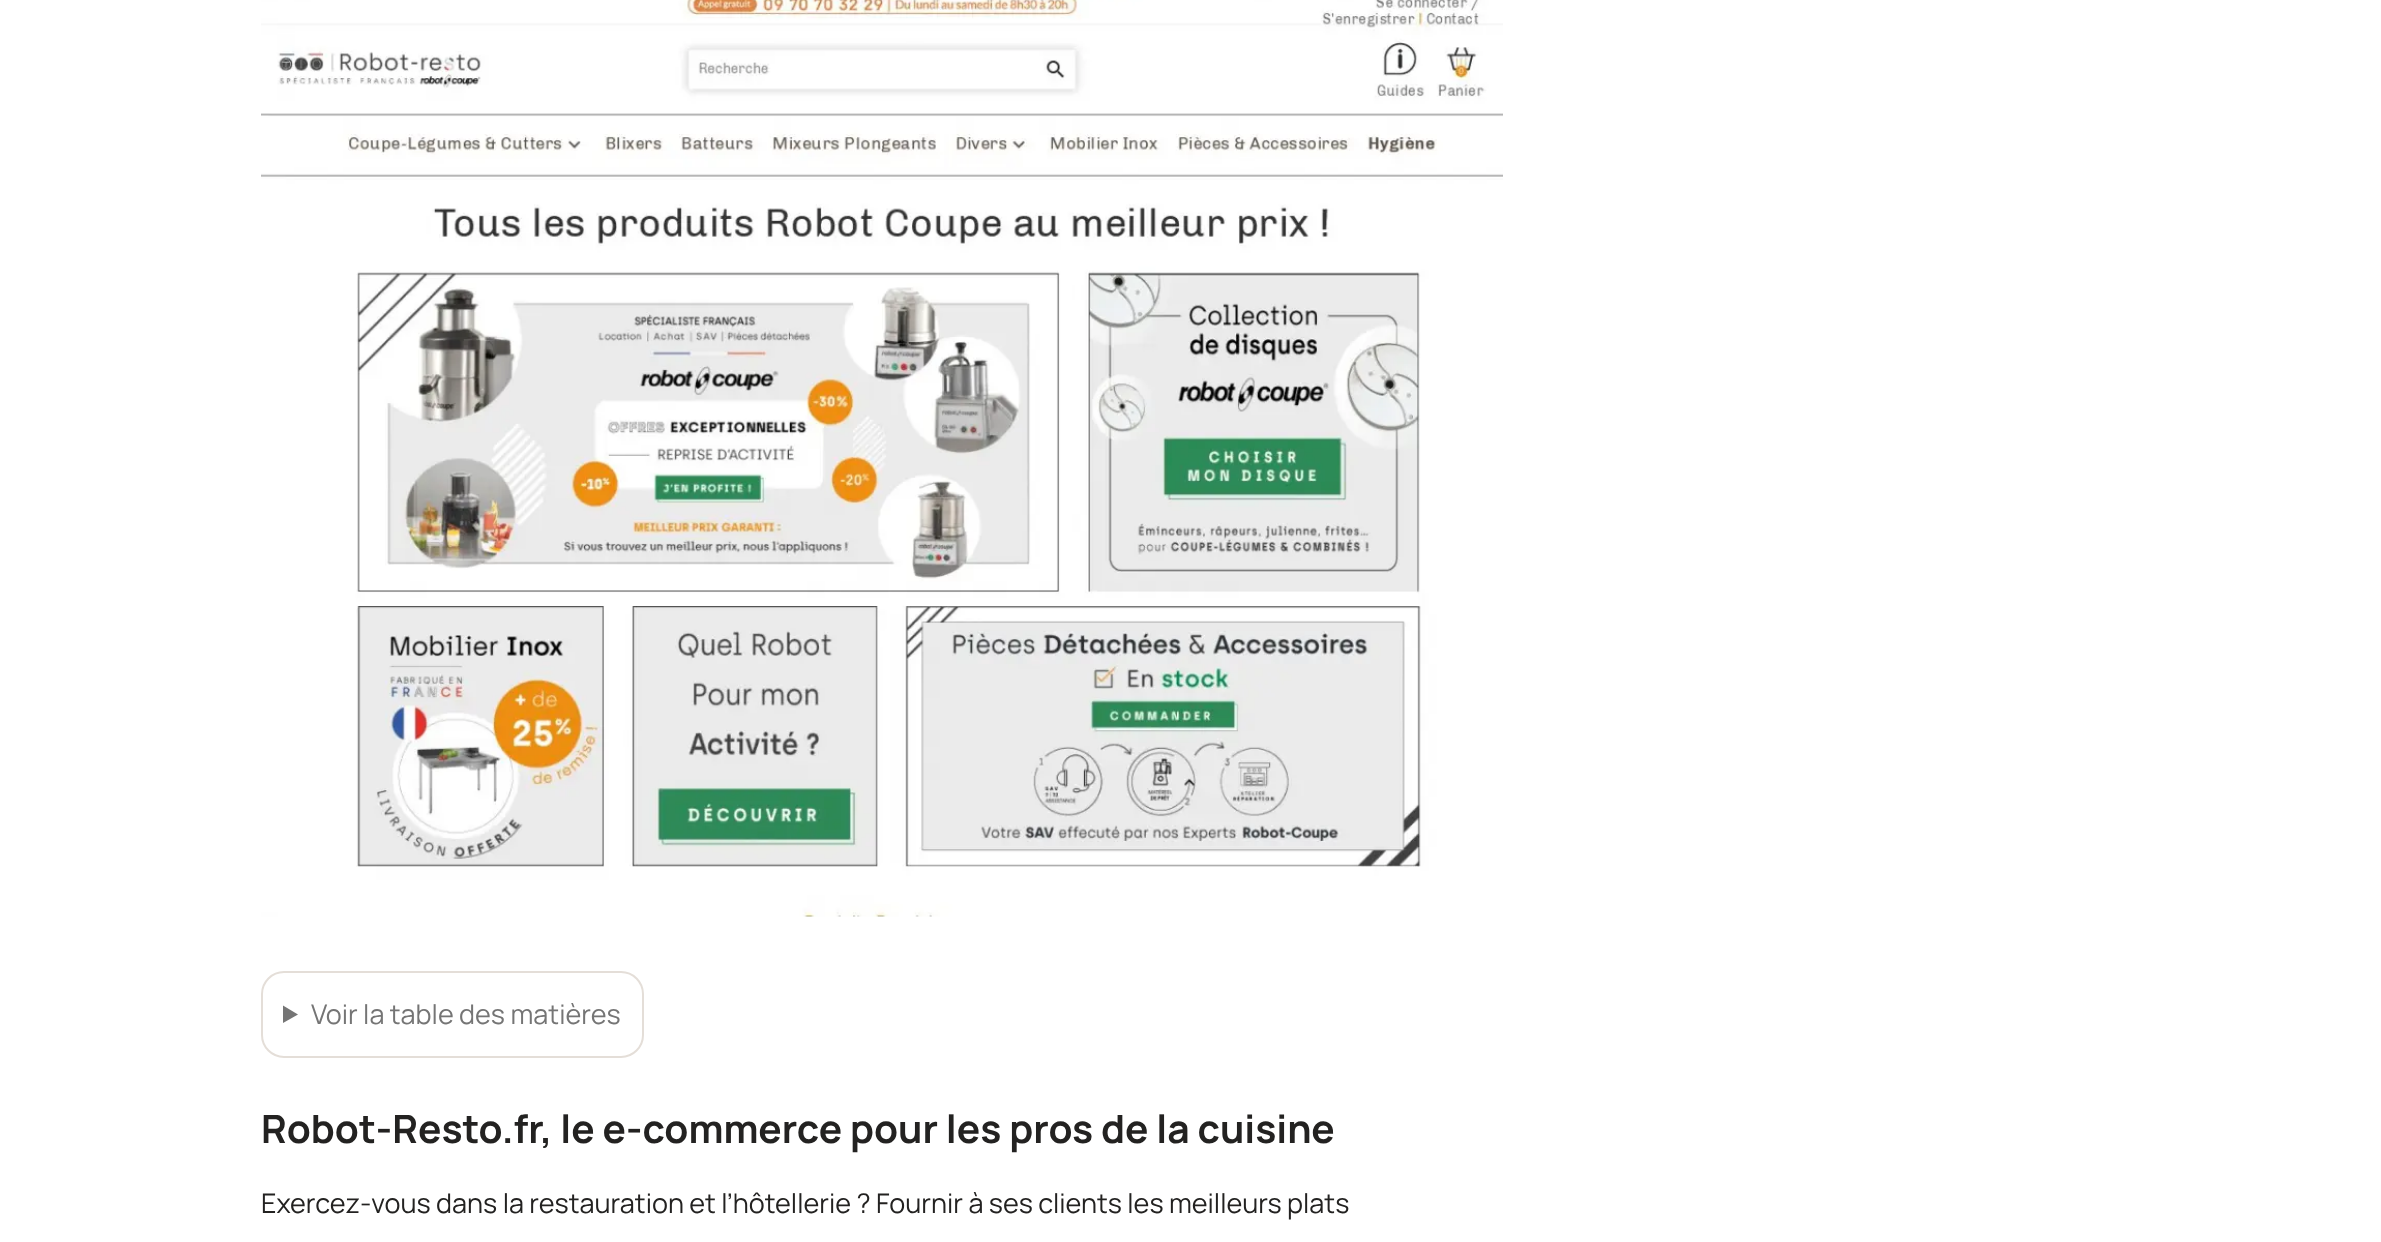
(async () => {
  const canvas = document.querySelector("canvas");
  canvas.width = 2381;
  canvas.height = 1242;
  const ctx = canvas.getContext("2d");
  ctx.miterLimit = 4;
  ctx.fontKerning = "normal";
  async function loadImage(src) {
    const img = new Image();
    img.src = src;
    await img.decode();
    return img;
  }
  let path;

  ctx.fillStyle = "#ffffff";
  ctx.fillRect(0, 0, 2381, 1242);
  ctx.drawImage(await loadImage("img/1.png"), 261, 0, 1242, 917);
  ctx.beginPath();
  ctx.roundRect(262, 972, 381, 85, 22);
  ctx.strokeStyle = "#e4ded8";
  ctx.lineWidth = 2;
  ctx.stroke();
  ctx.fillStyle = "#757575";
  path = new Path2D("M283 1005.5L298 1014.5L283 1023Z");
  ctx.fill(path);
  ctx.font = "27px Manrope";
  ctx.fillText("Voir la table des matières", 311, 1024);
  ctx.font = "bold 39px Manrope";
  ctx.fillStyle = "#232221";
  ctx.fillText("Robot-Resto.fr, le e-commerce pour les pros de la cuisine", 261, 1143);
  ctx.font = "27px Manrope";
  ctx.fillText("Exercez-vous dans la restauration et l’hôtellerie ? Fournir à ses clients les meilleurs plats", 261, 1213);
})();
